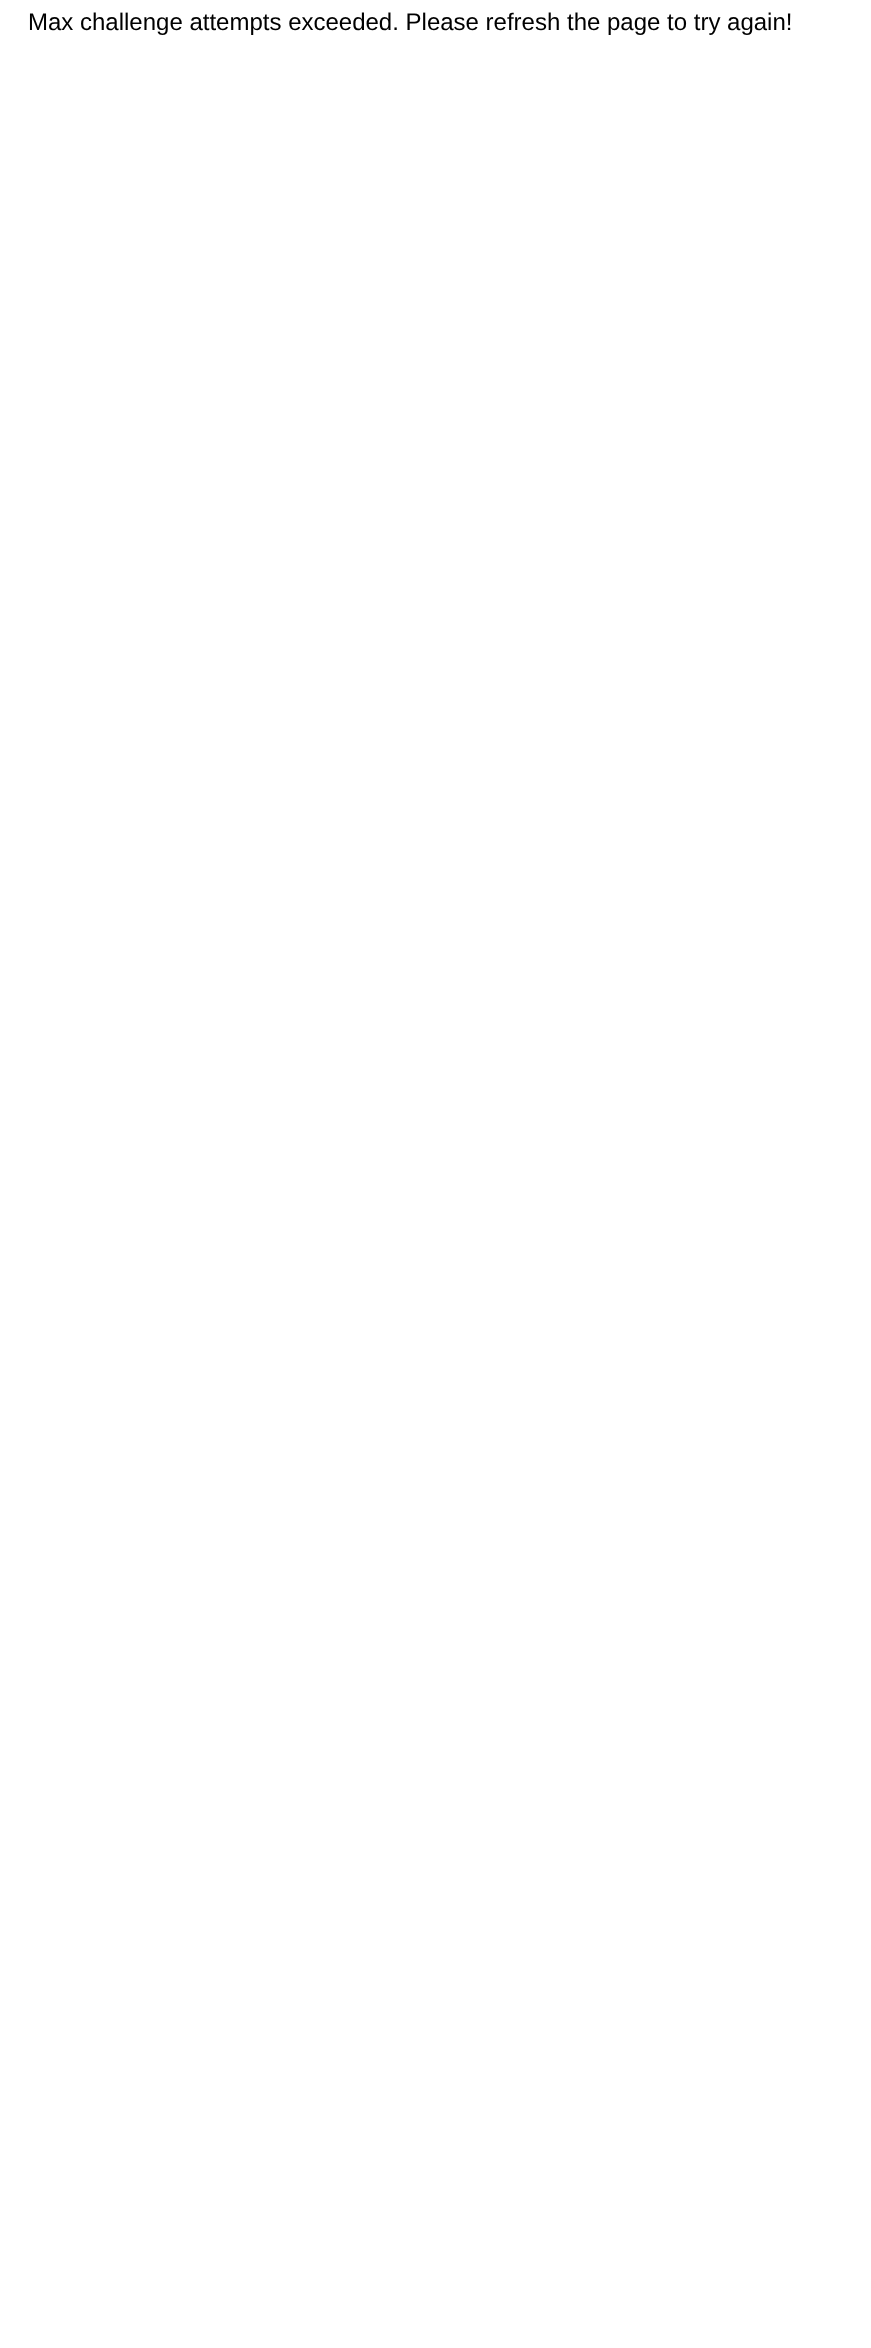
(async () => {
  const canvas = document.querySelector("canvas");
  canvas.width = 871;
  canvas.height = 2348;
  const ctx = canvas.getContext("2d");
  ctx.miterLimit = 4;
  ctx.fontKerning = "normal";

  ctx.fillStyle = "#ffffff";
  ctx.fillRect(0, 0, 871, 2348);
  ctx.font = "24px Liberation Sans";
  ctx.fillStyle = "#000000";
  ctx.fillText("Max challenge attempts exceeded. Please refresh the page to try again!", 28, 30);
})();
